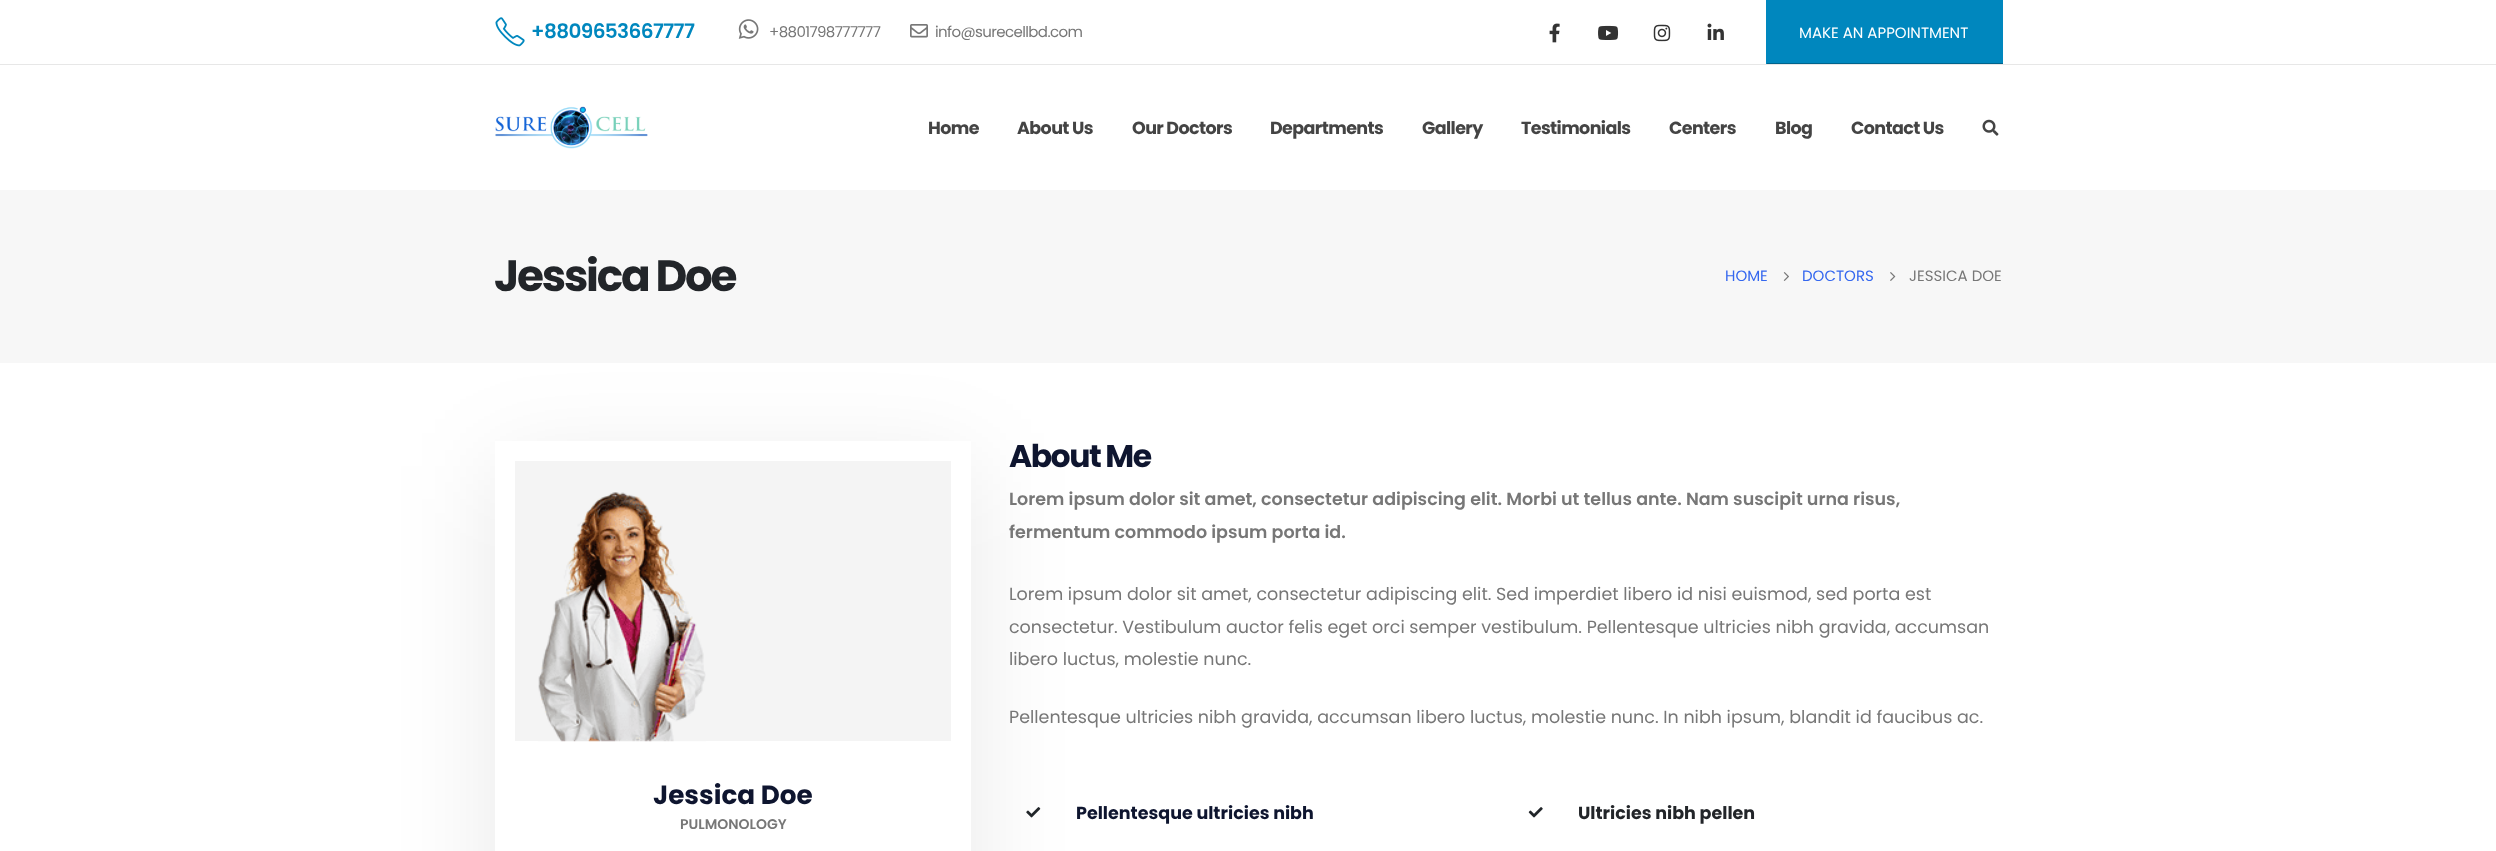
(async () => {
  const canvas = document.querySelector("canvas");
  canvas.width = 2496;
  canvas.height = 851;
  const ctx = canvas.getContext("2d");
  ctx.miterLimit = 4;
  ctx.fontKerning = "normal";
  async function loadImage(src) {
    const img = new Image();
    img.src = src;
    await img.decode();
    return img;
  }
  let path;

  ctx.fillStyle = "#ffffff";
  ctx.fillRect(0, 0, 2496, 851);
  ctx.fillStyle = "#e7e7e7";
  ctx.fillRect(0, 64, 2496, 1);
  ctx.drawImage(await loadImage("img/1.png"), 495, 17, 30, 30);
  ctx.drawImage(await loadImage("img/2.png"), 738, 19, 21, 20);
  ctx.drawImage(await loadImage("img/3.png"), 910, 24, 18, 14);
  ctx.drawImage(await loadImage("img/4.png"), 1549, 23, 11, 20);
  ctx.drawImage(await loadImage("img/5.png"), 1598, 25, 21, 15);
  ctx.drawImage(await loadImage("img/6.png"), 1653, 24, 18, 18);
  ctx.drawImage(await loadImage("img/7.png"), 1707, 23, 17, 17);
  for (const [x, y, w, h, color] of [
    [1767, 0, 236, 63, "#0087be"],
    [1766, 63, 237, 1, "#00638c"],
    [1766, 0, 1, 64, "#0087be"],
  ]) {
    ctx.fillStyle = color;
    ctx.fillRect(x, y, w, h);
  }
  ctx.drawImage(await loadImage("img/8.png"), 495, 106, 153, 43);
  ctx.drawImage(await loadImage("img/9.png"), 1982, 119, 17, 17);
  ctx.fillStyle = "#f7f7f7";
  ctx.fillRect(0, 190, 2496, 173);
  ctx.drawImage(await loadImage("img/10.png"), 1783, 272, 6, 9);
  ctx.drawImage(await loadImage("img/11.png"), 1890, 272, 6, 9);
  ctx.save();
  path = new Path2D("M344 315H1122V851H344ZM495 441H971V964H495Z");
  ctx.clip(path, "evenodd");
  ctx.fillStyle = "rgba(0, 0, 0, 0.09)";
  ctx.filter = "blur(50px)";
  ctx.beginPath();
  ctx.rect(495, 466, 476, 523);
  ctx.fill();
  ctx.filter = "none";
  ctx.restore();
  ctx.fillStyle = "#f4f4f4";
  ctx.fillRect(515, 461, 436, 280);
  ctx.drawImage(await loadImage("img/12.png"), 538, 492, 168, 250);
  ctx.drawImage(await loadImage("img/13.png"), 1026, 807, 15, 11);
  ctx.drawImage(await loadImage("img/14.png"), 1528, 807, 15, 11);
  ctx.letterSpacing = "-0.6px";
  ctx.font = "600 20px Poppins";
  ctx.fillStyle = "#0087be";
  ctx.fillText("+8809653667777", 531, 38);
  ctx.font = "15px Poppins";
  ctx.fillStyle = "#777777";
  ctx.fillText("+8801798777777", 769, 37);
  ctx.fillText("info@surecellbd.com", 935, 37);
  ctx.letterSpacing = "0px";
  ctx.fillStyle = "#ffffff";
  ctx.fillText("MAKE AN APPOINTMENT", 1799, 38);
  ctx.letterSpacing = "-0.6px";
  ctx.font = "bold 17.5px Poppins";
  ctx.fillStyle = "#444444";
  for (const [text, x, y] of [
    ["Home", 928, 134],
    ["About Us", 1017, 134],
    ["Our Doctors", 1132, 134],
    ["Departments", 1270, 134],
    ["Gallery", 1422, 134],
    ["Testimonials", 1521, 134],
    ["Centers", 1669, 134],
    ["Blog", 1775, 134],
    ["Contact Us", 1851, 134],
  ]) {
    ctx.fillText(text, x, y);
  }
  ctx.letterSpacing = "-2.25px";
  ctx.font = "bold 43.75px Poppins";
  ctx.fillStyle = "#222529";
  ctx.fillText("Jessica Doe", 494, 291);
  ctx.letterSpacing = "0px";
  ctx.font = "15px Poppins";
  ctx.fillStyle = "#3467ef";
  ctx.fillText("HOME", 1725, 281);
  ctx.fillText("DOCTORS", 1802, 281);
  ctx.fillStyle = "#777777";
  ctx.fillText("JESSICA DOE", 1909, 281);
  ctx.font = "bold 26.25px Poppins";
  ctx.fillStyle = "#0e152f";
  ctx.fillText("Jessica Doe", 653, 804);
  ctx.font = "600 14px Poppins";
  ctx.fillStyle = "#777777";
  ctx.fillText("PULMONOLOGY", 680, 829);
  ctx.letterSpacing = "-1.5px";
  ctx.font = "bold 31.5px Poppins";
  ctx.fillStyle = "#0e152f";
  ctx.fillText("About Me", 1009, 467);
  ctx.letterSpacing = "0px";
  ctx.font = "600 17.5px Poppins";
  ctx.fillStyle = "#777777";
  ctx.fillText("Lorem ipsum dolor sit amet, consectetur adipiscing elit. Morbi ut tellus ante. Nam suscipit urna risus,", 1009, 505);
  ctx.fillText("fermentum commodo ipsum porta id.", 1009, 538);
  ctx.font = "17.5px Poppins";
  for (const [text, x, y] of [
    ["Lorem ipsum dolor sit amet, consectetur adipiscing elit. Sed imperdiet libero id nisi euismod, sed porta est", 1009, 600],
    ["consectetur. Vestibulum auctor felis eget orci semper vestibulum. Pellentesque ultricies nibh gravida, accumsan", 1009, 633],
    ["libero luctus, molestie nunc.", 1009, 665],
    ["Pellentesque ultricies nibh gravida, accumsan libero luctus, molestie nunc. In nibh ipsum, blandit id faucibus ac.", 1009, 723],
  ]) {
    ctx.fillText(text, x, y);
  }
  ctx.font = "bold 17.5px Poppins";
  ctx.fillStyle = "#0e152f";
  ctx.fillText("Pellentesque ultricies nibh", 1076, 819);
  ctx.fillStyle = "#222529";
  ctx.fillText("Ultricies nibh pellen", 1578, 819);
})();
